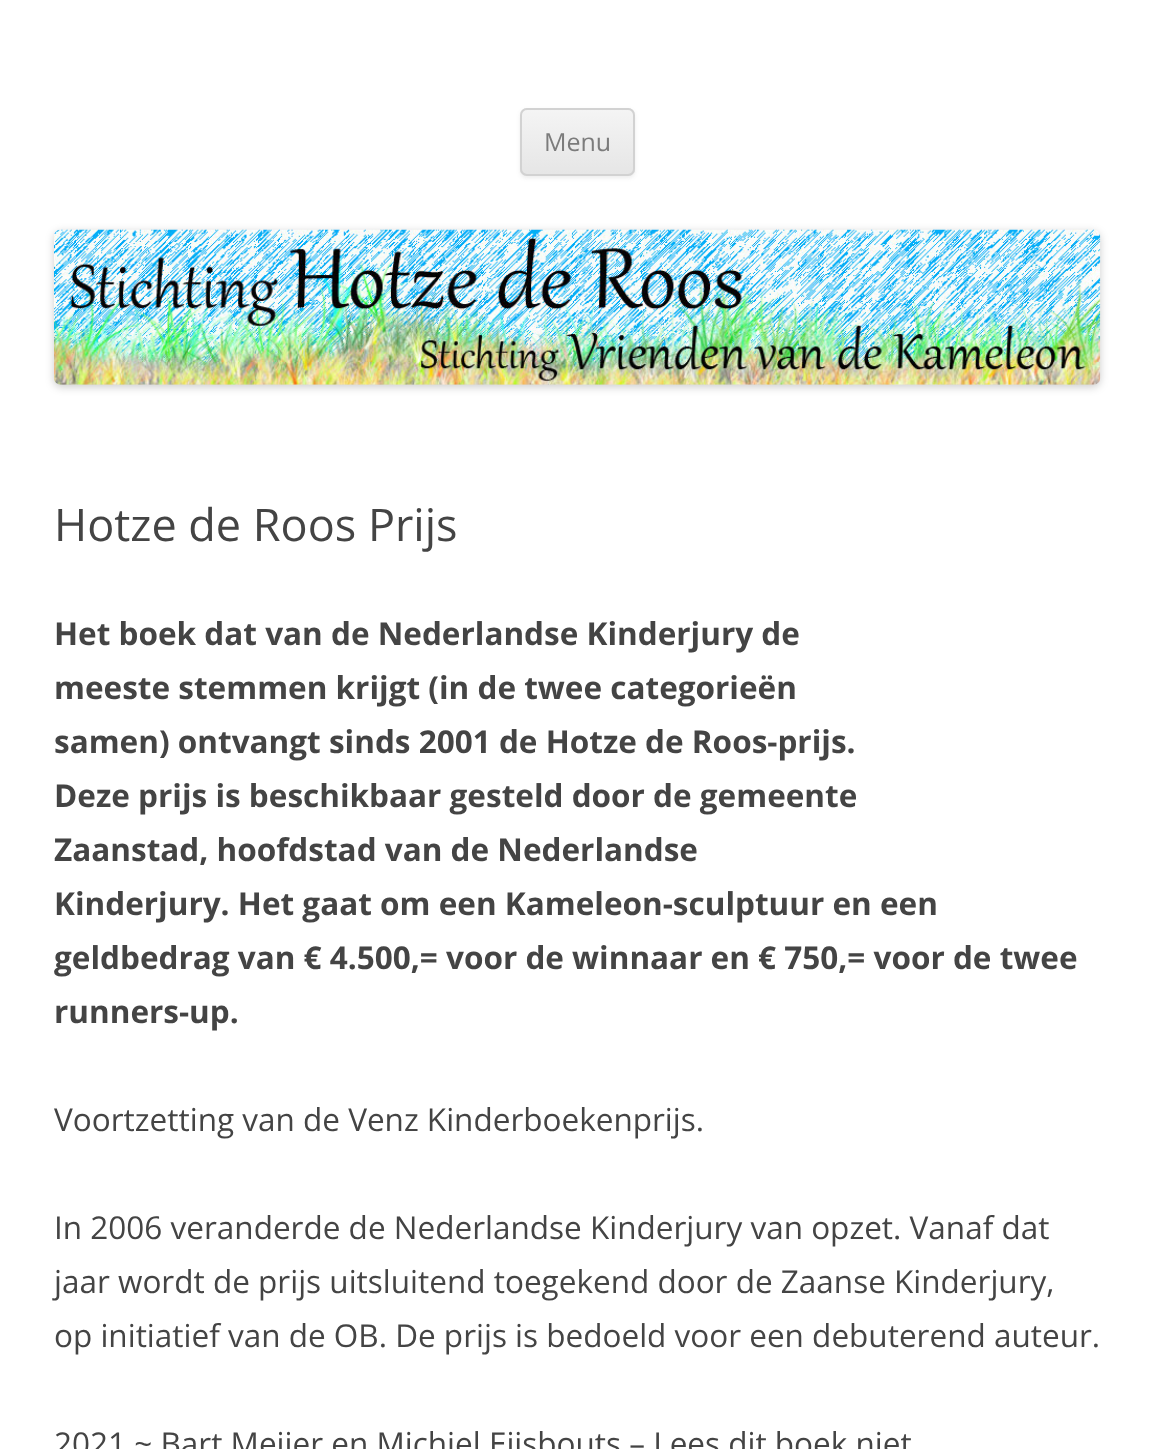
(async () => {
  const canvas = document.querySelector("canvas");
  canvas.width = 1154;
  canvas.height = 1449;
  const ctx = canvas.getContext("2d");
  ctx.miterLimit = 4;
  ctx.fontKerning = "normal";
  async function loadImage(src) {
    const img = new Image();
    img.src = src;
    await img.decode();
    return img;
  }
  let gradient;

  ctx.fillStyle = "#ffffff";
  ctx.fillRect(0, 0, 1154, 1449);
  ctx.fillStyle = "rgba(64, 64, 64, 0.1)";
  ctx.filter = "blur(2px)";
  ctx.beginPath();
  ctx.roundRect(520, 110, 115, 68, 7);
  ctx.fill();
  ctx.filter = "none";
  ctx.fillStyle = "#e6e6e6";
  ctx.beginPath();
  ctx.roundRect(520, 108, 115, 68, 7);
  ctx.fill();
  ctx.save();
  ctx.beginPath();
  ctx.roundRect(520, 108, 115, 68, 7);
  ctx.clip();
  gradient = ctx.createLinearGradient(577, 110, 577, 173);
  gradient.addColorStop(0, "#f4f4f4");
  gradient.addColorStop(1, "#e6e6e6");
  ctx.fillStyle = gradient;
  ctx.fillRect(520, 110, 115, 63);
  ctx.restore();
  ctx.beginPath();
  ctx.roundRect(521, 109, 113, 66, 6);
  ctx.strokeStyle = "#d2d2d2";
  ctx.lineWidth = 2;
  ctx.stroke();
  ctx.fillStyle = "rgba(0, 0, 0, 0.2)";
  ctx.filter = "blur(4.5px)";
  ctx.beginPath();
  ctx.roundRect(54, 232, 1046, 155, 7);
  ctx.fill();
  ctx.filter = "none";
  ctx.drawImage(await loadImage("img/1.png"), 54, 229, 1047, 156);
  ctx.font = "25px Open Sans";
  ctx.fillStyle = "#7c7c7c";
  ctx.fillText("Menu", 544, 151);
  ctx.font = "45px Open Sans";
  ctx.fillStyle = "#444444";
  ctx.fillText("Hotze de Roos Prijs", 54, 541);
  ctx.font = "bold 31.5px Open Sans";
  for (const [text, x, y] of [
    ["Het boek dat van de Nederlandse Kinderjury de", 54, 645],
    ["meeste stemmen krijgt (in de twee categorieën", 54, 699],
    ["samen) ontvangt sinds 2001 de Hotze de Roos-prijs.", 54, 753],
    ["Deze prijs is beschikbaar gesteld door de gemeente", 54, 807],
    ["Zaanstad, hoofdstad van de Nederlandse", 54, 861],
    ["Kinderjury. Het gaat om een Kameleon-sculptuur en een", 54, 915],
    ["geldbedrag van € 4.500,= voor de winnaar en € 750,= voor de twee", 54, 969],
    ["runners-up.", 54, 1023],
  ]) {
    ctx.fillText(text, x, y);
  }
  ctx.font = "31.5px Open Sans";
  for (const [text, x, y] of [
    ["Voortzetting van de Venz Kinderboekenprijs.", 54, 1131],
    ["In 2006 veranderde de Nederlandse Kinderjury van opzet. Vanaf dat", 54, 1239],
    ["jaar wordt de prijs uitsluitend toegekend door de Zaanse Kinderjury,", 54, 1293],
    ["op initiatief van de OB. De prijs is bedoeld voor een debuterend auteur.", 54, 1347],
    ["2021 ~ Bart Meijer en Michiel Eijsbouts – Lees dit boek niet", 54, 1455],
  ]) {
    ctx.fillText(text, x, y);
  }
})();
